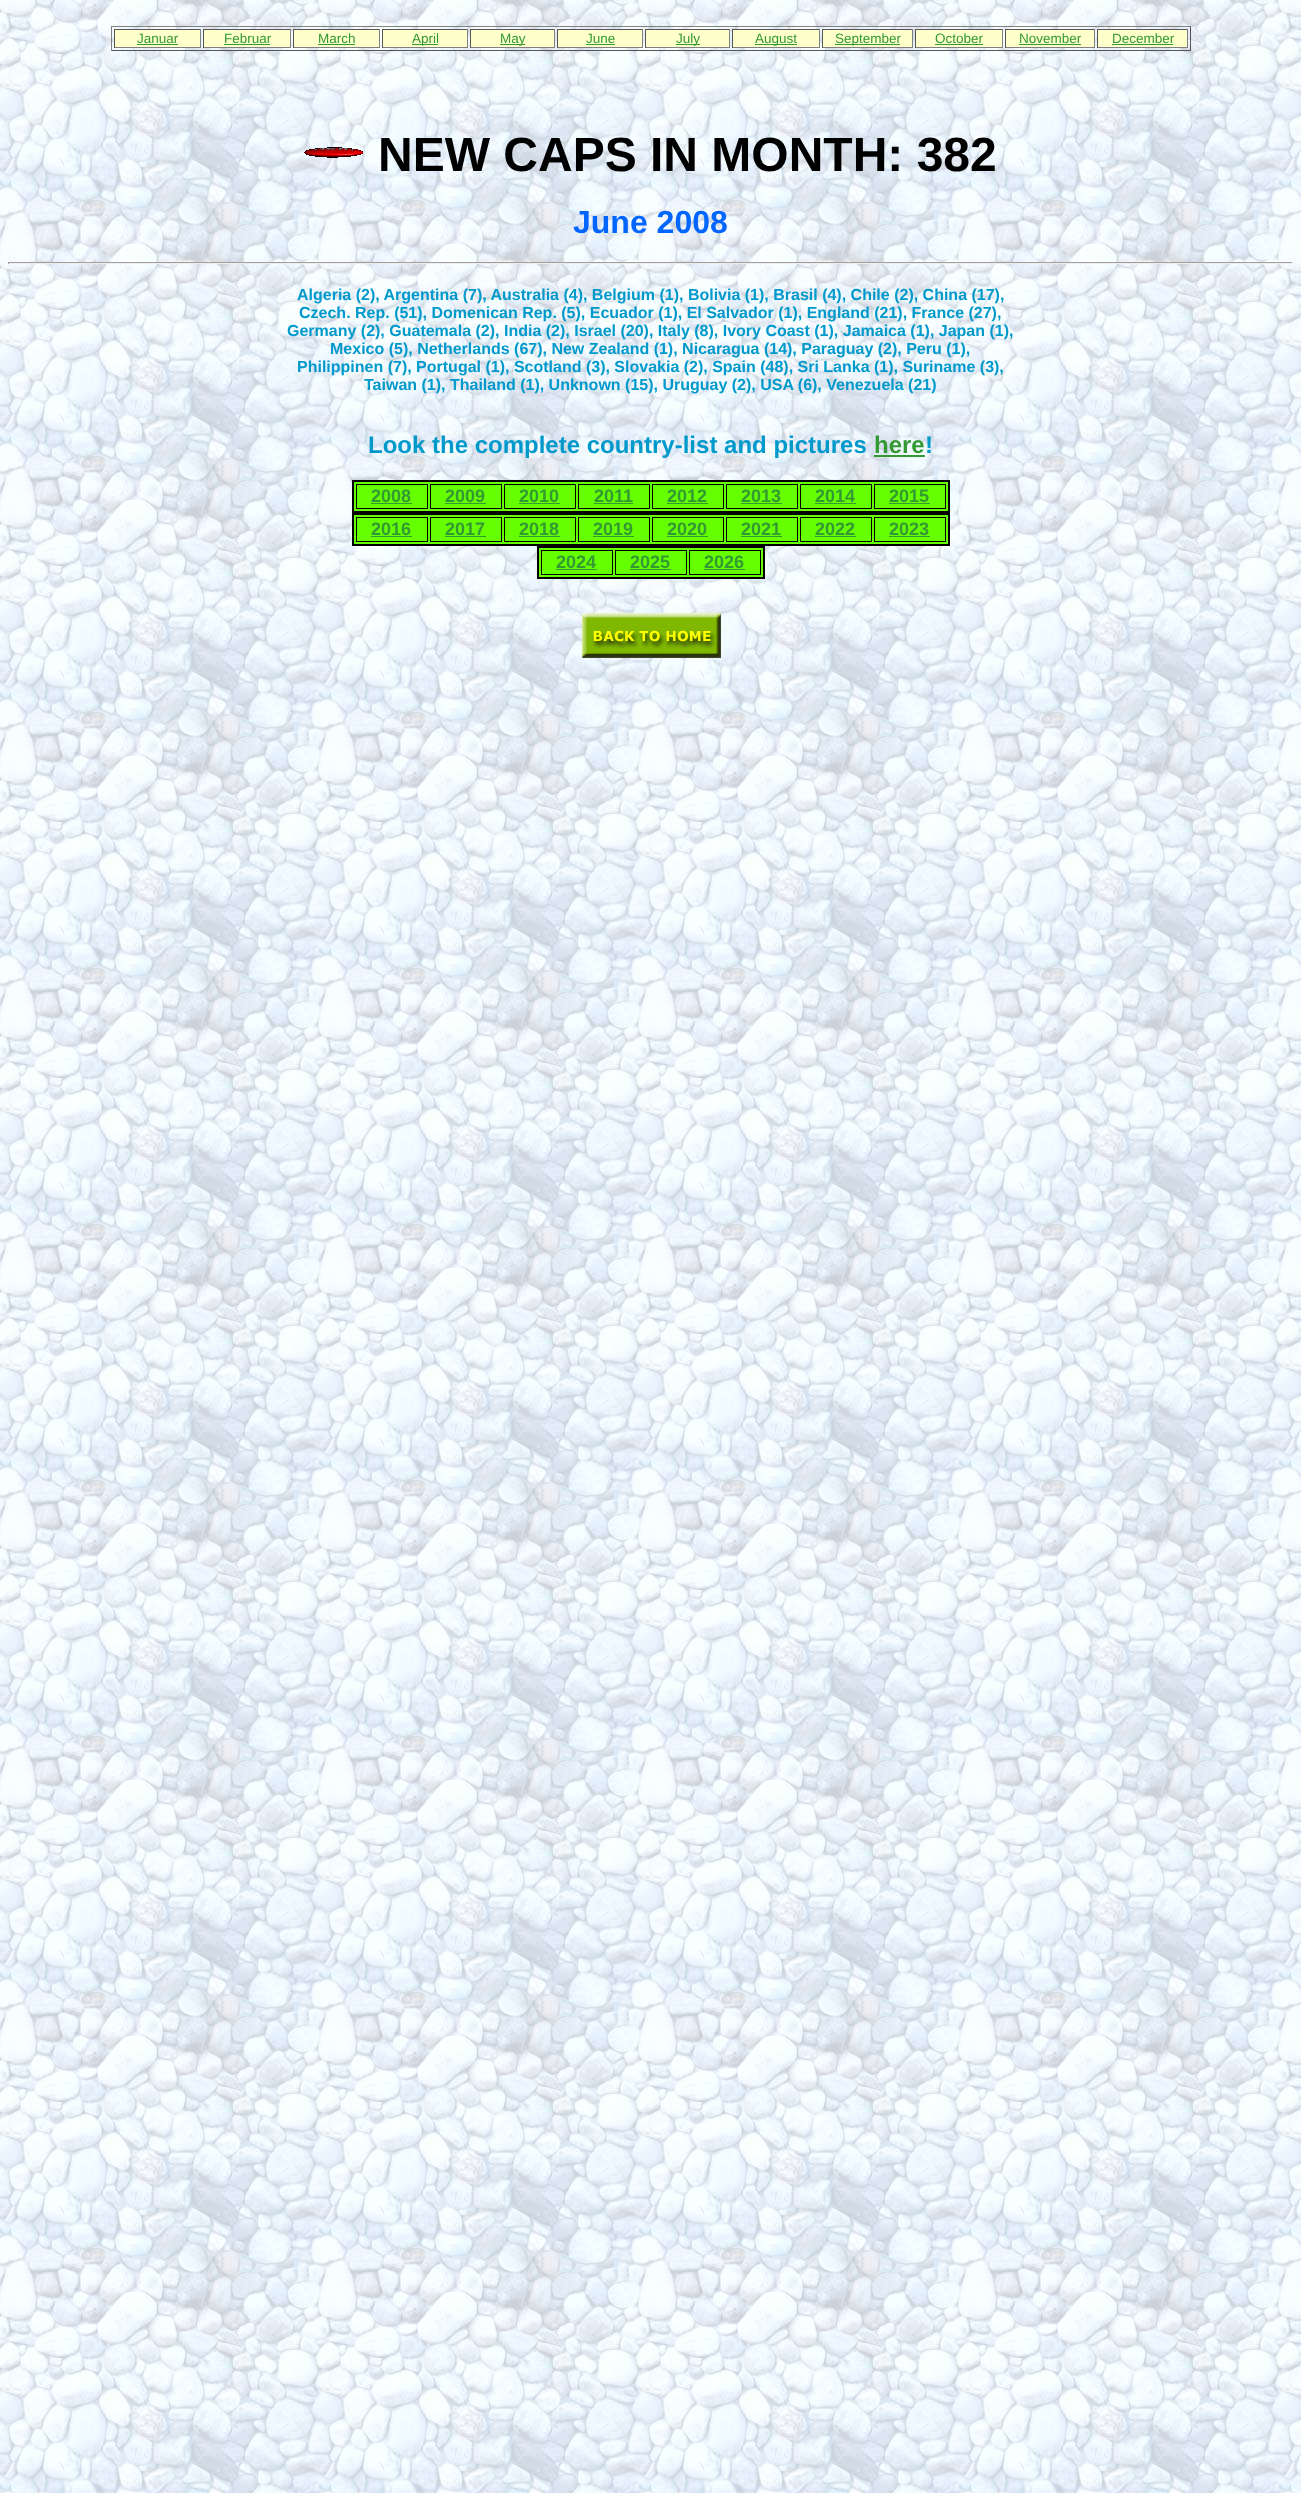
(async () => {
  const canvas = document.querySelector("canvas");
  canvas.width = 1301;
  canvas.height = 2493;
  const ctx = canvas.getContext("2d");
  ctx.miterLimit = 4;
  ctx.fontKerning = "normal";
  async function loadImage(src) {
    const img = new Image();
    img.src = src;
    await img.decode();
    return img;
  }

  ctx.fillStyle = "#ffffff";
  ctx.fillRect(0, 0, 1301, 2493);
  ctx.drawImage(await loadImage("img/1.png"), 0, 0, 1301, 2493);
  for (const [x, y, w, h, color] of [
    [111, 26, 1080, 1, "#808080"],
    [1190, 26, 1, 25, "#555555"],
    [111, 50, 1080, 1, "#555555"],
    [111, 26, 1, 25, "#808080"],
    [115, 30, 85, 17, "#ffffcc"],
    [114, 29, 87, 1, "#555555"],
    [200, 29, 1, 19, "#808080"],
    [114, 47, 87, 1, "#808080"],
    [114, 29, 1, 19, "#555555"],
    [137, 44, 41, 1, "#339933"],
    [204, 30, 86, 17, "#ffffcc"],
    [203, 29, 88, 1, "#555555"],
    [290, 29, 1, 19, "#808080"],
    [203, 47, 88, 1, "#808080"],
    [203, 29, 1, 19, "#555555"],
    [224, 44, 46, 1, "#339933"],
    [294, 30, 85, 17, "#ffffcc"],
    [293, 29, 87, 1, "#555555"],
    [379, 29, 1, 19, "#808080"],
    [293, 47, 87, 1, "#808080"],
    [293, 29, 1, 19, "#555555"],
    [318, 44, 37, 1, "#339933"],
    [383, 30, 84, 17, "#ffffcc"],
    [382, 29, 86, 1, "#555555"],
    [467, 29, 1, 19, "#808080"],
    [382, 47, 86, 1, "#808080"],
    [382, 29, 1, 19, "#555555"],
    [412, 44, 26, 1, "#339933"],
    [471, 30, 83, 17, "#ffffcc"],
    [470, 29, 85, 1, "#555555"],
    [554, 29, 1, 19, "#808080"],
    [470, 47, 85, 1, "#808080"],
    [470, 29, 1, 19, "#555555"],
    [500, 44, 25, 1, "#339933"],
    [558, 30, 84, 17, "#ffffcc"],
    [557, 29, 86, 1, "#555555"],
    [642, 29, 1, 19, "#808080"],
    [557, 47, 86, 1, "#808080"],
    [557, 29, 1, 19, "#555555"],
    [586, 44, 29, 1, "#339933"],
    [646, 30, 83, 17, "#ffffcc"],
    [645, 29, 85, 1, "#555555"],
    [729, 29, 1, 19, "#808080"],
    [645, 47, 85, 1, "#808080"],
    [645, 29, 1, 19, "#555555"],
    [676, 44, 24, 1, "#339933"],
    [733, 30, 86, 17, "#ffffcc"],
    [732, 29, 88, 1, "#555555"],
    [819, 29, 1, 19, "#808080"],
    [732, 47, 88, 1, "#808080"],
    [732, 29, 1, 19, "#555555"],
    [755, 44, 42, 1, "#339933"],
    [823, 30, 89, 17, "#ffffcc"],
    [822, 29, 91, 1, "#555555"],
    [912, 29, 1, 19, "#808080"],
    [822, 47, 91, 1, "#808080"],
    [822, 29, 1, 19, "#555555"],
    [835, 44, 65, 1, "#339933"],
    [916, 30, 86, 17, "#ffffcc"],
    [915, 29, 88, 1, "#555555"],
    [1002, 29, 1, 19, "#808080"],
    [915, 47, 88, 1, "#808080"],
    [915, 29, 1, 19, "#555555"],
    [935, 44, 48, 1, "#339933"],
    [1006, 30, 88, 17, "#ffffcc"],
    [1005, 29, 90, 1, "#555555"],
    [1094, 29, 1, 19, "#808080"],
    [1005, 47, 90, 1, "#808080"],
    [1005, 29, 1, 19, "#555555"],
    [1019, 44, 62, 1, "#339933"],
    [1098, 30, 89, 17, "#ffffcc"],
    [1097, 29, 91, 1, "#555555"],
    [1187, 29, 1, 19, "#808080"],
    [1097, 47, 91, 1, "#808080"],
    [1097, 29, 1, 19, "#555555"],
    [1112, 44, 61, 1, "#339933"],
  ]) {
    ctx.fillStyle = color;
    ctx.fillRect(x, y, w, h);
  }
  ctx.drawImage(await loadImage("img/2.png"), 304, 147, 59, 11);
  for (const [x, y, w, h, color] of [
    [8, 262, 1285, 1, "#9f9f9f"],
    [1292, 262, 1, 2, "#eeeeee"],
    [8, 263, 1285, 1, "#eeeeee"],
    [8, 262, 1, 2, "#9f9f9f"],
    [874, 455, 51, 2, "#339933"],
  ]) {
    ctx.fillStyle = color;
    ctx.fillRect(x, y, w, h);
  }
  ctx.fillStyle = "#66ff00";
  ctx.beginPath();
  ctx.rect(353, 481, 596, 31);
  ctx.fill();
  ctx.strokeStyle = "#000000";
  ctx.lineWidth = 2;
  ctx.stroke();
  ctx.lineWidth = 1;
  ctx.strokeRect(356.5, 484.5, 71, 24);
  ctx.fillStyle = "#339933";
  ctx.fillRect(371, 503, 41, 1);
  ctx.strokeRect(430.5, 484.5, 71, 24);
  ctx.fillRect(445, 503, 41, 1);
  ctx.strokeRect(504.5, 484.5, 71, 24);
  ctx.fillRect(519, 503, 41, 1);
  ctx.strokeRect(578.5, 484.5, 71, 24);
  ctx.fillRect(594, 503, 39, 1);
  ctx.strokeRect(652.5, 484.5, 71, 24);
  ctx.fillRect(667, 503, 41, 1);
  ctx.strokeRect(726.5, 484.5, 71, 24);
  ctx.fillRect(741, 503, 41, 1);
  ctx.strokeRect(800.5, 484.5, 71, 24);
  ctx.fillRect(815, 503, 41, 1);
  ctx.strokeRect(874.5, 484.5, 71, 24);
  ctx.fillRect(889, 503, 41, 1);
  ctx.fillStyle = "#66ff00";
  ctx.beginPath();
  ctx.rect(353, 514, 596, 31);
  ctx.fill();
  ctx.lineWidth = 2;
  ctx.stroke();
  ctx.lineWidth = 1;
  ctx.strokeRect(356.5, 517.5, 71, 24);
  ctx.fillStyle = "#339933";
  ctx.fillRect(371, 536, 41, 1);
  ctx.strokeRect(430.5, 517.5, 71, 24);
  ctx.fillRect(445, 536, 41, 1);
  ctx.strokeRect(504.5, 517.5, 71, 24);
  ctx.fillRect(519, 536, 41, 1);
  ctx.strokeRect(578.5, 517.5, 71, 24);
  ctx.fillRect(593, 536, 41, 1);
  ctx.strokeRect(652.5, 517.5, 71, 24);
  ctx.fillRect(667, 536, 41, 1);
  ctx.strokeRect(726.5, 517.5, 71, 24);
  ctx.fillRect(741, 536, 41, 1);
  ctx.strokeRect(800.5, 517.5, 71, 24);
  ctx.fillRect(815, 536, 41, 1);
  ctx.strokeRect(874.5, 517.5, 71, 24);
  ctx.fillRect(889, 536, 41, 1);
  ctx.fillStyle = "#66ff00";
  ctx.beginPath();
  ctx.rect(538, 547, 226, 31);
  ctx.fill();
  ctx.lineWidth = 2;
  ctx.stroke();
  ctx.lineWidth = 1;
  ctx.strokeRect(541.5, 550.5, 71, 24);
  ctx.fillStyle = "#339933";
  ctx.fillRect(556, 569, 41, 1);
  ctx.strokeRect(615.5, 550.5, 71, 24);
  ctx.fillRect(630, 569, 41, 1);
  ctx.strokeRect(689.5, 550.5, 71, 24);
  ctx.fillRect(704, 569, 41, 1);
  ctx.drawImage(await loadImage("img/3.png"), 582, 613, 139, 45);
  ctx.font = "13.5px Liberation Sans";
  for (const [text, x, y] of [
    ["Januar", 137, 43],
    ["Februar", 224, 43],
    ["March", 318, 43],
    ["April", 412, 43],
    ["May", 500, 43],
    ["June", 586, 43],
    ["July", 676, 43],
    ["August", 755, 43],
    ["September", 835, 43],
    ["October", 935, 43],
    ["November", 1019, 43],
    ["December", 1112, 43],
  ]) {
    ctx.fillText(text, x, y);
  }
  ctx.font = "bold 48px Liberation Sans";
  ctx.fillStyle = "#000000";
  ctx.fillText("NEW CAPS IN MONTH: 382", 378, 171);
  ctx.font = "bold 32px Liberation Sans";
  ctx.fillStyle = "#0066ff";
  ctx.fillText("June 2008", 573, 233);
  ctx.font = "bold 16px Liberation Sans";
  ctx.fillStyle = "#0099cc";
  for (const [text, x, y] of [
    ["Algeria (2), Argentina (7), Australia (4), Belgium (1), Bolivia (1), Brasil (4), Chile (2), China (17),", 297, 300],
    ["Czech. Rep. (51), Domenican Rep. (5), Ecuador (1), El Salvador (1), England (21), France (27),", 299, 318],
    ["Germany (2), Guatemala (2), India (2), Israel (20), Italy (8), Ivory Coast (1), Jamaica (1), Japan (1),", 287, 336],
    ["Mexico (5), Netherlands (67), New Zealand (1), Nicaragua (14), Paraguay (2), Peru (1),", 330, 354],
    ["Philippinen (7), Portugal (1), Scotland (3), Slovakia (2), Spain (48), Sri Lanka (1), Suriname (3),", 297, 372],
    ["Taiwan (1), Thailand (1), Unknown (15), Uruguay (2), USA (6), Venezuela (21)", 364, 390],
  ]) {
    ctx.fillText(text, x, y);
  }
  ctx.font = "bold 24px Liberation Sans";
  ctx.fillText("Look the complete country-list and pictures", 368, 453);
  ctx.fillStyle = "#339933";
  ctx.fillText("here", 874, 453);
  ctx.fillStyle = "#0099cc";
  ctx.fillText("!", 925, 453);
  ctx.font = "bold 18px Liberation Sans";
  ctx.fillStyle = "#339933";
  for (const [text, x, y] of [
    ["2008", 371, 502],
    ["2009", 445, 502],
    ["2010", 519, 502],
    ["2011", 594, 502],
    ["2012", 667, 502],
    ["2013", 741, 502],
    ["2014", 815, 502],
    ["2015", 889, 502],
    ["2016", 371, 535],
    ["2017", 445, 535],
    ["2018", 519, 535],
    ["2019", 593, 535],
    ["2020", 667, 535],
    ["2021", 741, 535],
    ["2022", 815, 535],
    ["2023", 889, 535],
    ["2024", 556, 568],
    ["2025", 630, 568],
    ["2026", 704, 568],
  ]) {
    ctx.fillText(text, x, y);
  }
})();
